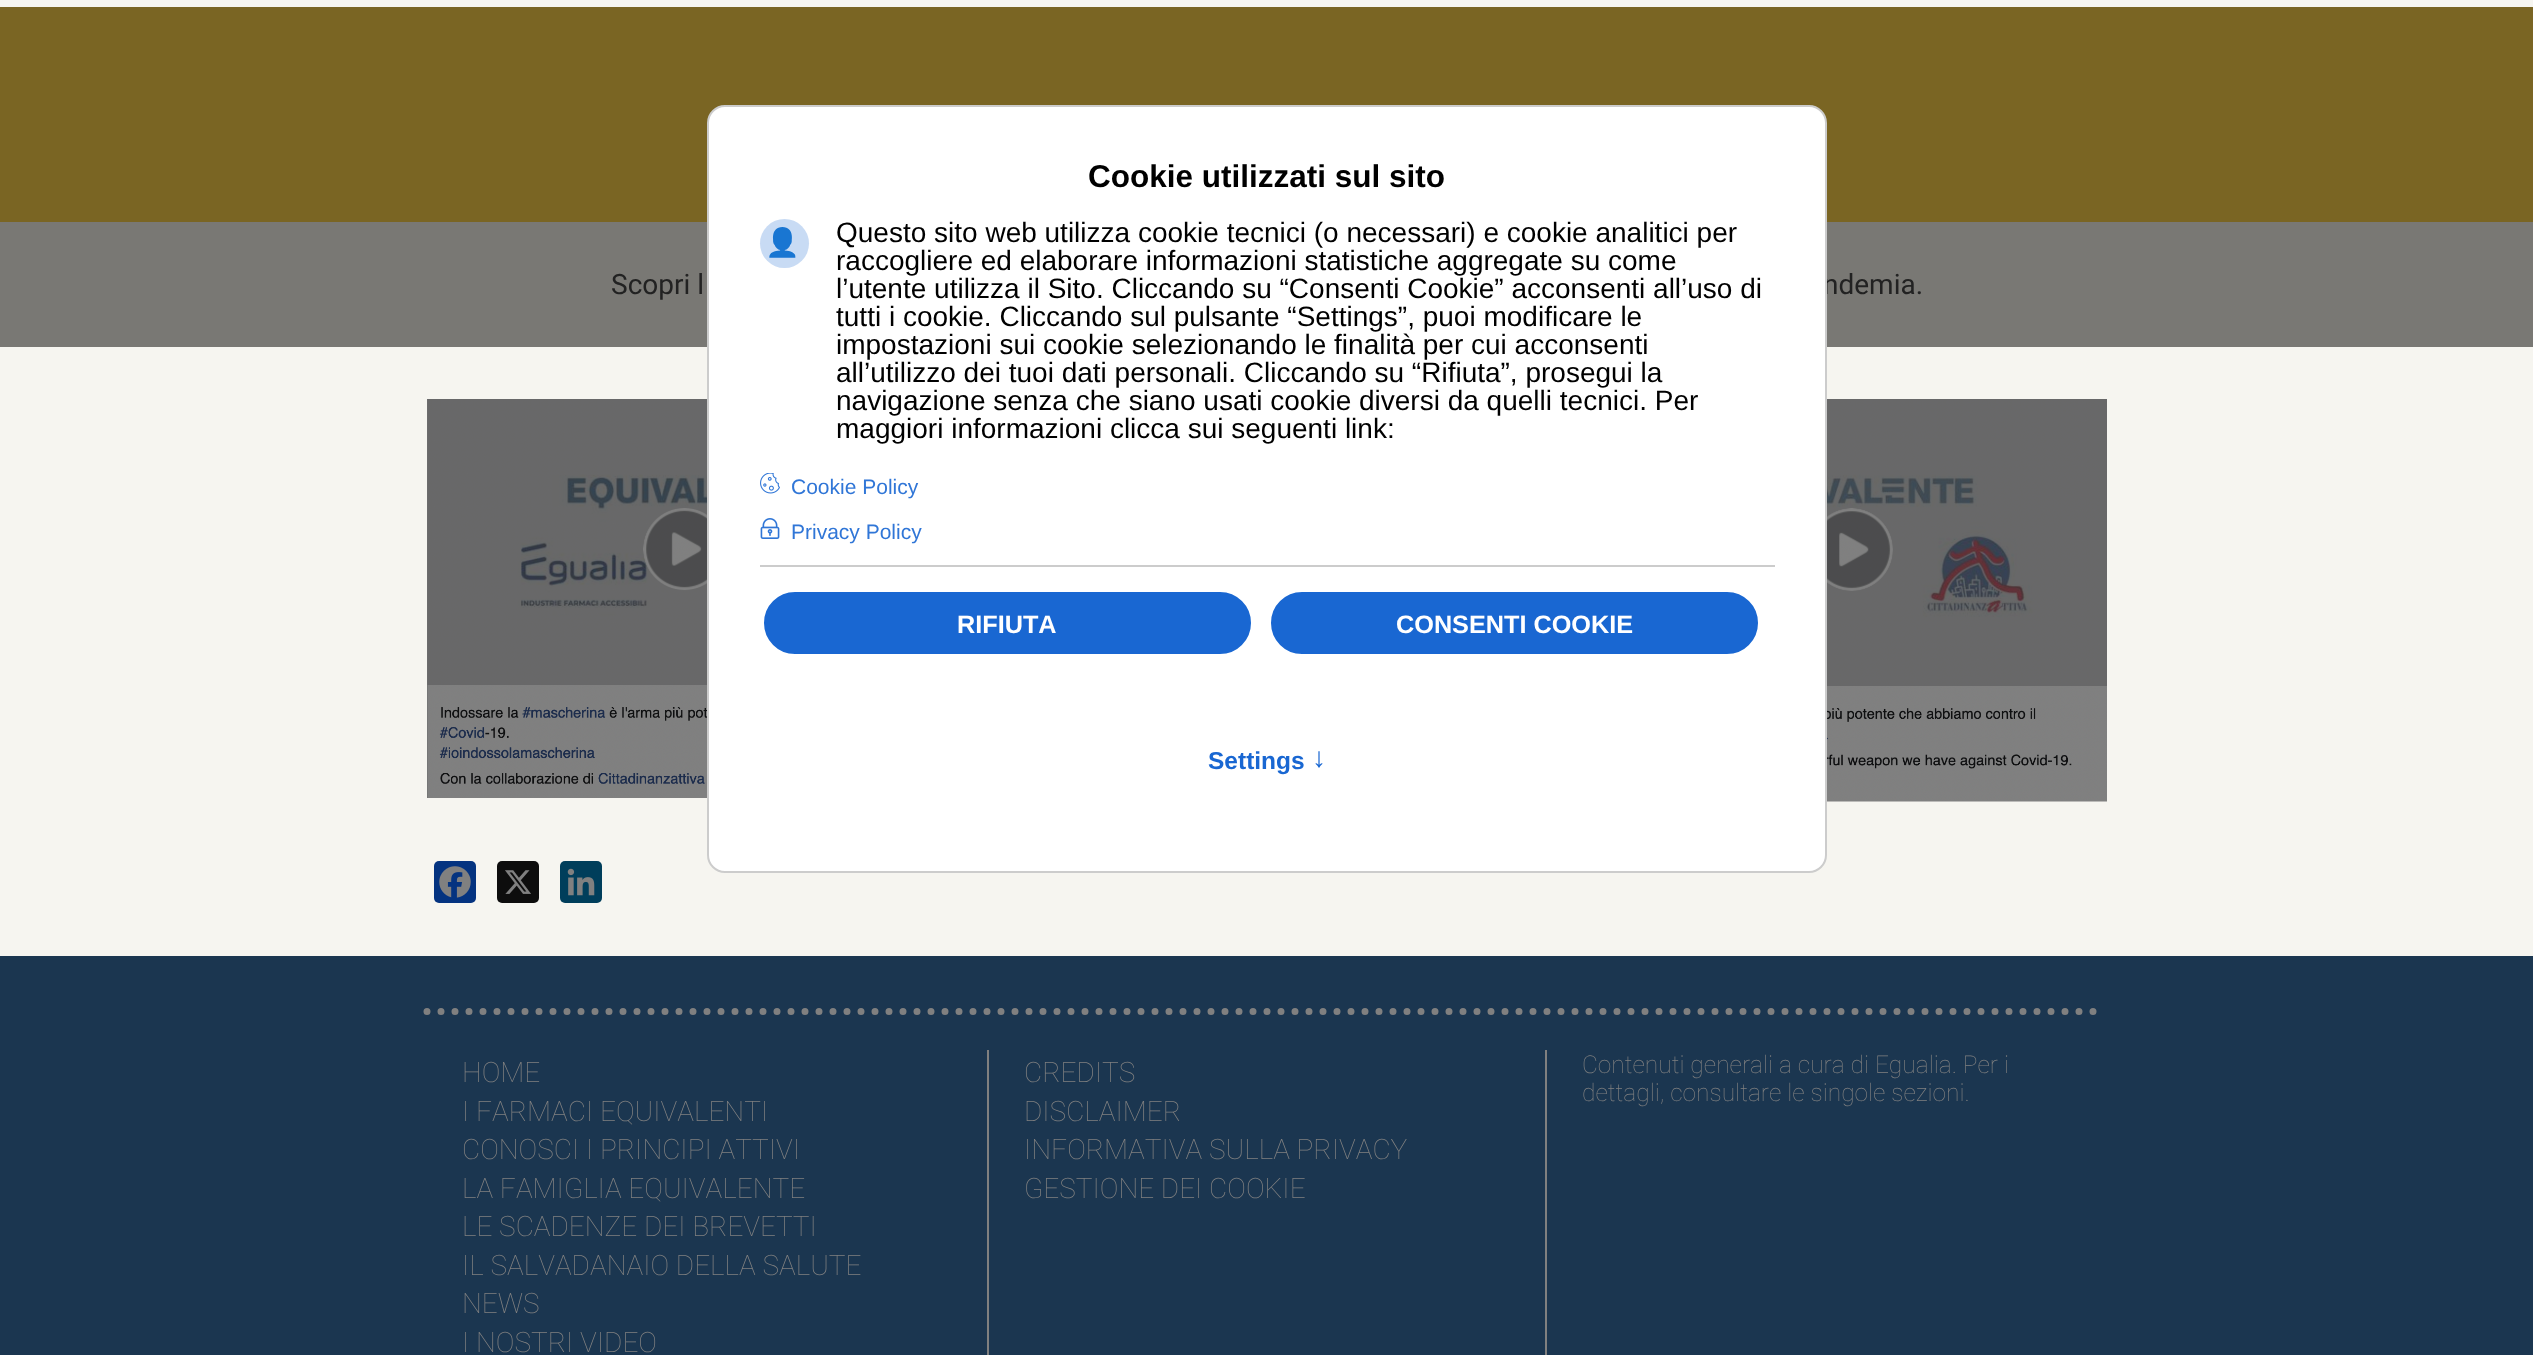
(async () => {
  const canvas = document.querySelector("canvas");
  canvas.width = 2533;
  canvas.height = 1355;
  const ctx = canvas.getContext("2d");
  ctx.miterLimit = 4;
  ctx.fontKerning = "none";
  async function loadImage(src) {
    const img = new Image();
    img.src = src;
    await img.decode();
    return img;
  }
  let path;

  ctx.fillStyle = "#f6f5f0";
  ctx.fillRect(0, 0, 2533, 1355);
  ctx.fillStyle = "#797874";
  ctx.fillRect(0, 222, 2533, 125);
  ctx.fillStyle = "#7a6523";
  ctx.fillRect(0, 7, 2533, 215);
  ctx.drawImage(await loadImage("img/3.png"), 427, 399, 280, 399);
  ctx.drawImage(await loadImage("img/4.png"), 1827, 399, 280, 403);
  ctx.fillStyle = "#043380";
  ctx.beginPath();
  ctx.roundRect(434, 861, 42, 42, 5);
  ctx.fill();
  ctx.drawImage(await loadImage("img/5.png"), 439, 866, 32, 32);
  ctx.fillStyle = "#0d0d0d";
  ctx.beginPath();
  ctx.roundRect(497, 861, 42, 42, 5);
  ctx.fill();
  ctx.drawImage(await loadImage("img/6.png"), 505, 870, 26, 24);
  ctx.fillStyle = "#003e5b";
  ctx.beginPath();
  ctx.roundRect(560, 861, 42, 42, 5);
  ctx.fill();
  ctx.drawImage(await loadImage("img/7.png"), 567, 868, 28, 28);
  ctx.fillStyle = "#1b3650";
  ctx.fillRect(0, 956, 2533, 399);
  path = new Path2D("M427 1011.5H2107");
  ctx.strokeStyle = "#808080";
  ctx.lineWidth = 7;
  ctx.lineCap = "round";
  ctx.setLineDash([0, 14]);
  ctx.stroke(path);
  ctx.fillStyle = "#808080";
  ctx.fillRect(1545, 1050, 2, 305);
  ctx.fillRect(987, 1050, 2, 305);
  ctx.font = "28px Roboto";
  ctx.fillStyle = "#222222";
  ctx.fillText("Scopri l", 611, 294);
  ctx.fillText("ndemia.", 1823, 294);
  ctx.fillStyle = "#ffffff";
  ctx.beginPath();
  ctx.roundRect(708, 106, 1118, 766, 17);
  ctx.fill();
  ctx.strokeStyle = "#cccccc";
  ctx.lineWidth = 2;
  ctx.setLineDash([]);
  ctx.stroke();
  ctx.font = "bold 28px Liberation Sans";
  ctx.fillStyle = "#1967d2";
  ctx.save();
  ctx.translate(1326, 752);
  ctx.rotate(180 * Math.PI / 180);
  ctx.fillText("↑", 0, 0);
  ctx.restore();
  ctx.font = "bold 24.5px Liberation Sans";
  ctx.fillText("Settings", 1208, 769);
  ctx.font = "21px Liberation Sans";
  ctx.fillStyle = "#3076d7";
  ctx.fillText("Privacy Policy", 791, 539);
  ctx.drawImage(await loadImage("img/2.png"), 760, 518, 20, 21);
  ctx.fillText("Cookie Policy", 791, 494);
  ctx.drawImage(await loadImage("img/1.png"), 760, 473, 20, 21);
  ctx.font = "bold 31.5px Liberation Sans";
  ctx.fillStyle = "#000000";
  ctx.fillText("Cookie utilizzati sul sito", 1088, 187);
  ctx.fillStyle = "#1967d2";
  ctx.beginPath();
  ctx.roundRect(1269, 590, 491, 66, 33);
  ctx.fill();
  ctx.strokeStyle = "#ffffff";
  ctx.lineWidth = 4;
  ctx.stroke();
  ctx.font = "bold 25.25px Liberation Sans";
  ctx.fillStyle = "#ffffff";
  ctx.fillText("CONSENTI COOKIE", 1396, 633);
  ctx.fillStyle = "#1967d2";
  ctx.beginPath();
  ctx.roundRect(762, 590, 491, 66, 33);
  ctx.fill();
  ctx.stroke();
  ctx.fillStyle = "#ffffff";
  ctx.fillText("RIFIUTA", 957, 633);
  ctx.fillStyle = "#cccccc";
  ctx.fillRect(760, 565, 1015, 2);
  ctx.font = "28px Liberation Sans";
  ctx.fillStyle = "#000000";
  for (const [text, x, y] of [
    ["maggiori informazioni clicca sui seguenti link:", 836, 438],
    ["navigazione senza che siano usati cookie diversi da quelli tecnici. Per", 836, 410],
    ["all’utilizzo dei tuoi dati personali. Cliccando su “Rifiuta”, prosegui la", 836, 382],
    ["impostazioni sui cookie selezionando le finalità per cui acconsenti", 836, 354],
    ["tutti i cookie. Cliccando sul pulsante “Settings”, puoi modificare le", 836, 326],
    ["l’utente utilizza il Sito. Cliccando su “Consenti Cookie” acconsenti all’uso di", 836, 298],
    ["raccogliere ed elaborare informazioni statistiche aggregate su come", 836, 270],
    ["Questo sito web utilizza cookie tecnici (o necessari) e cookie analitici per", 836, 242],
  ]) {
    ctx.fillText(text, x, y);
  }
  ctx.fillStyle = "#c8dbf4";
  ctx.beginPath();
  ctx.arc(784.5, 243.5, 24.5, 0, Math.PI * 2);
  ctx.fill();
  ctx.font = "28px Noto Color Emoji";
  ctx.fillStyle = "#000000";
  ctx.fillText("👤", 765, 252);
  ctx.font = "100 28px Roboto";
  ctx.fillStyle = "#808080";
  for (const [text, x, y] of [
    ["HOME", 462, 1082],
    ["I FARMACI EQUIVALENTI", 462, 1121],
    ["CONOSCI I PRINCIPI ATTIVI", 462, 1159],
    ["LA FAMIGLIA EQUIVALENTE", 462, 1198],
    ["LE SCADENZE DEI BREVETTI", 462, 1236],
    ["IL SALVADANAIO DELLA SALUTE", 462, 1275],
    ["NEWS", 462, 1313],
    ["I NOSTRI VIDEO", 462, 1352],
    ["CREDITS", 1024, 1082],
    ["DISCLAIMER", 1024, 1121],
    ["INFORMATIVA SULLA PRIVACY", 1024, 1159],
    ["GESTIONE DEI COOKIE", 1024, 1198],
  ]) {
    ctx.fillText(text, x, y);
  }
  ctx.font = "100 24.5px Roboto";
  ctx.fillText("Contenuti generali a cura di Egualia. Per i", 1582, 1073);
  ctx.fillText("dettagli, consultare le singole sezioni.", 1582, 1101);
})();
